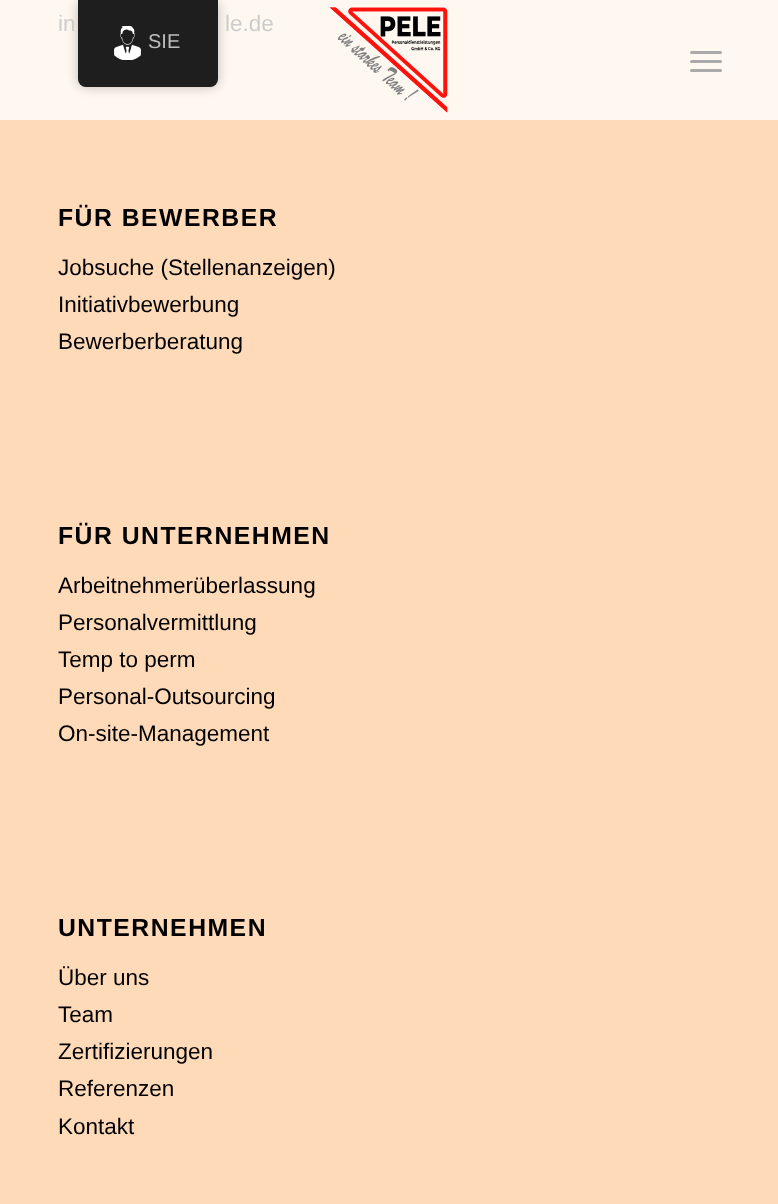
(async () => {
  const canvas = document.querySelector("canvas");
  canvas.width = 778;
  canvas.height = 1204;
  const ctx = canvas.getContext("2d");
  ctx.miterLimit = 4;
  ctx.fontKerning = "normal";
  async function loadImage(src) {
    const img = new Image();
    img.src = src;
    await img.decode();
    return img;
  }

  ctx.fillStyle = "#ffdab9";
  ctx.fillRect(0, 0, 778, 1204);
  ctx.fillStyle = "#fff8f1";
  ctx.fillRect(0, 0, 778, 120);
  ctx.drawImage(await loadImage("img/1.png"), 330, 7, 118, 106);
  ctx.fillStyle = "#aaaaaa";
  ctx.beginPath();
  ctx.roundRect(690, 60, 32, 3, 1.5);
  ctx.fill();
  ctx.beginPath();
  ctx.roundRect(690, 51, 32, 3, 1.5);
  ctx.fill();
  ctx.beginPath();
  ctx.roundRect(690, 69, 32, 3, 1.5);
  ctx.fill();
  ctx.fillStyle = "rgba(0, 0, 0, 0.25)";
  ctx.filter = "blur(6px)";
  ctx.beginPath();
  ctx.roundRect(78, 0, 140, 87, 8);
  ctx.fill();
  ctx.filter = "none";
  ctx.fillStyle = "#1e1e1e";
  ctx.beginPath();
  ctx.roundRect(78, 0, 140, 87, [0, 0, 8, 8]);
  ctx.fill();
  ctx.drawImage(await loadImage("img/2.png"), 114, 26, 27, 34);
  ctx.font = "22.5px Liberation Sans";
  ctx.fillStyle = "#cccccc";
  ctx.fillText("in", 58, 31);
  ctx.fillText("le.de", 225, 31);
  ctx.letterSpacing = "1.5px";
  ctx.font = "bold 24.75px Liberation Sans";
  ctx.fillStyle = "#000000";
  ctx.fillText("FÜR BEWERBER", 58, 226);
  ctx.letterSpacing = "0px";
  ctx.font = "22.5px Liberation Sans";
  for (const [text, x, y] of [
    ["Jobsuche (Stellenanzeigen)", 58, 275],
    ["Initiativbewerbung", 58, 312],
    ["Bewerberberatung", 58, 349],
  ]) {
    ctx.fillText(text, x, y);
  }
  ctx.letterSpacing = "1.5px";
  ctx.font = "bold 24.75px Liberation Sans";
  ctx.fillText("FÜR UNTERNEHMEN", 58, 544);
  ctx.letterSpacing = "0px";
  ctx.font = "22.5px Liberation Sans";
  for (const [text, x, y] of [
    ["Arbeitnehmerüberlassung", 58, 593],
    ["Personalvermittlung", 58, 630],
    ["Temp to perm", 58, 667],
    ["Personal-Outsourcing", 58, 704],
    ["On-site-Management", 58, 741],
  ]) {
    ctx.fillText(text, x, y);
  }
  ctx.letterSpacing = "1.5px";
  ctx.font = "bold 24.75px Liberation Sans";
  ctx.fillText("UNTERNEHMEN", 58, 936);
  ctx.letterSpacing = "0px";
  ctx.font = "22.5px Liberation Sans";
  for (const [text, x, y] of [
    ["Über uns", 58, 985],
    ["Team", 58, 1022],
    ["Zertifizierungen", 58, 1059],
    ["Referenzen", 58, 1096],
    ["Kontakt", 58, 1134],
  ]) {
    ctx.fillText(text, x, y);
  }
  ctx.font = "20px Liberation Sans";
  ctx.fillStyle = "#bdbdbd";
  ctx.fillText("SIE", 148, 48);
})();
